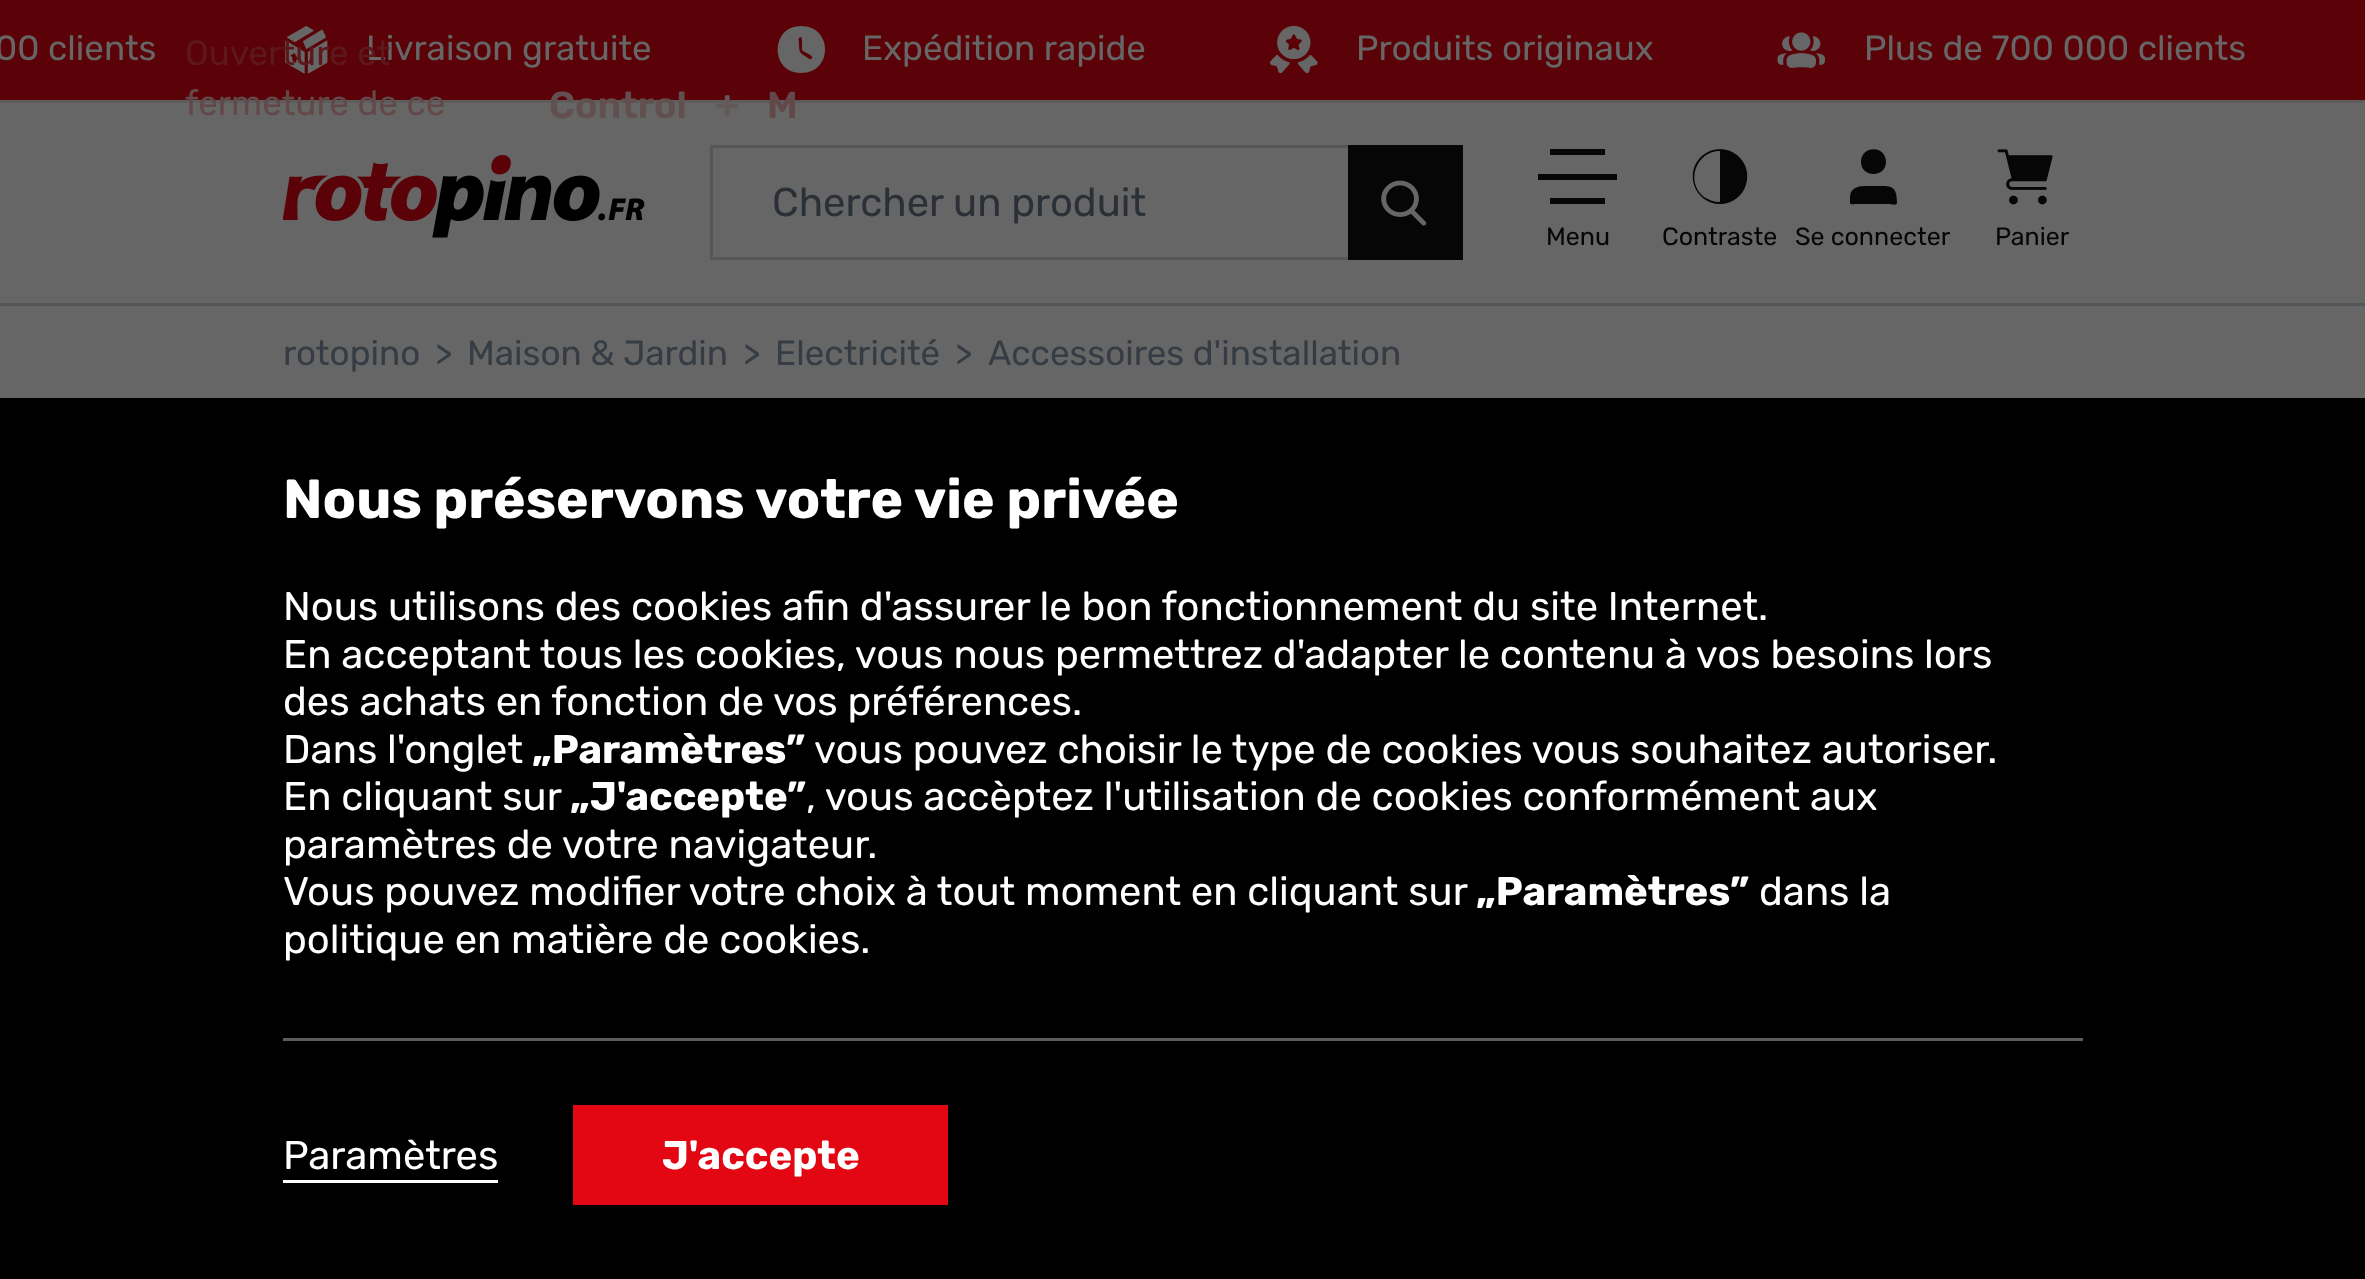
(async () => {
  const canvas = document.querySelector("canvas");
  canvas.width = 2365;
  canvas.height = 1279;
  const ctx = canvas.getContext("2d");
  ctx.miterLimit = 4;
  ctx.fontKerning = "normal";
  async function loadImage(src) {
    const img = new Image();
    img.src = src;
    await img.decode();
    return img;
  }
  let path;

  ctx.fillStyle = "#666666";
  ctx.fillRect(0, 0, 2365, 1279);
  ctx.fillStyle = "#5b0208";
  ctx.fillRect(0, 0, 2365, 100);
  ctx.fillStyle = "#5d5d5d";
  ctx.fillRect(0, 100, 2365, 3);
  ctx.drawImage(await loadImage("img/1.png"), 285, 26, 43, 48);
  ctx.fillStyle = "#666666";
  path = new Path2D("M801 26C770 26 770 73 801 73C833 73 833 26 801 26ZM812 58C811 60 809 59 808 58C800 53 799 53 799 44C799 42 798 39 799 38C803 34 802 44 802 49V50C804 53 814 55 812 58Z");
  ctx.fill(path);
  ctx.drawImage(await loadImage("img/2.png"), 1270, 25, 48, 49);
  ctx.drawImage(await loadImage("img/3.png"), 1777, 32, 48, 36);
  ctx.fillStyle = "#545658";
  ctx.fillRect(0, 303, 2365, 3);
  ctx.drawImage(await loadImage("img/4.png"), 283, 155, 362, 83);
  ctx.strokeStyle = "#545658";
  ctx.lineWidth = 3;
  ctx.strokeRect(711.5, 146.5, 747, 112);
  ctx.fillStyle = "#060606";
  ctx.fillRect(1348, 145, 115, 115);
  ctx.drawImage(await loadImage("img/5.png"), 1381, 180, 46, 46);
  path = new Path2D("M1538 174H1617V180H1538ZM1550 149H1605V155H1550ZM1550 198H1605V204H1550Z");
  ctx.fill(path);
  path = new Path2D("M1720 149C1714 149 1708 151 1703 155C1683 171 1694 204 1720 204C1746 204 1757 171 1737 155C1732 151 1726 149 1720 149ZM1720 202C1714 202 1709 200 1704 197C1685 182 1696 151 1720 151Z");
  ctx.fill(path);
  path = new Path2D("M1886 162C1886 145 1861 145 1861 162C1861 178 1886 178 1886 162ZM1850 198C1850 184 1864 186 1874 186C1890 186 1897 184 1897 203C1897 206 1891 204 1888 204H1859C1849 204 1850 206 1850 198Z");
  ctx.fill(path);
  ctx.drawImage(await loadImage("img/6.png"), 1997, 149, 56, 56);
  for (const [x, y, w, h, color] of [
    [0, 398, 2365, 881, "#000000"],
    [283, 1038, 1800, 3, "#5c5c5c"],
    [283, 1180, 215, 3, "#ffffff"],
    [573, 1105, 375, 100, "#e30613"],
  ]) {
    ctx.fillStyle = color;
    ctx.fillRect(x, y, w, h);
  }
  ctx.font = "35px Rubik";
  ctx.fillStyle = "#666666";
  for (const [text, x, y] of [
    ["00 clients", -5, 60],
    ["Livraison gratuite", 366, 60],
    ["Expédition rapide", 862, 60],
    ["Produits originaux", 1356, 60],
    ["Plus de 700 000 clients", 1864, 60],
  ]) {
    ctx.fillText(text, x, y);
  }
  ctx.font = "40px Rubik";
  ctx.fillStyle = "#2a3036";
  ctx.fillText("Chercher un produit", 772, 216);
  ctx.font = "25px Rubik";
  ctx.fillStyle = "#060606";
  for (const [text, x, y] of [
    ["Menu", 1546, 245],
    ["Contraste", 1662, 245],
    ["Se connecter", 1795, 245],
    ["Panier", 1995, 245],
  ]) {
    ctx.fillText(text, x, y);
  }
  ctx.font = "35px Rubik";
  ctx.fillStyle = "#5d181c";
  ctx.fillText("Ouverture et", 185, 65);
  ctx.fillStyle = "#624849";
  ctx.fillText("fermeture de ce", 185, 115);
  ctx.font = "600 37.5px Rubik";
  ctx.fillStyle = "#625051";
  ctx.fillText("Control", 549, 118);
  ctx.font = "600 40px Rubik";
  ctx.fillStyle = "#645859";
  ctx.fillText("+", 715, 118);
  ctx.font = "600 37.5px Rubik";
  ctx.fillStyle = "#624849";
  ctx.fillText("M", 767, 118);
  ctx.font = "35px Rubik";
  ctx.fillStyle = "#363c44";
  for (const [text, x, y] of [
    ["rotopino", 283, 365],
    [">", 435, 365],
    ["Maison & Jardin", 467, 365],
    [">", 743, 365],
    ["Electricité", 775, 365],
    [">", 955, 365],
    ["Accessoires d'installation", 988, 365],
  ]) {
    ctx.fillText(text, x, y);
  }
  ctx.font = "bold 55px Rubik";
  ctx.fillStyle = "#ffffff";
  ctx.fillText("Nous préservons votre vie privée", 283, 518);
  ctx.font = "40px Rubik";
  for (const [text, x, y] of [
    ["Nous utilisons des cookies afin d'assurer le bon fonctionnement du site Internet.", 283, 620],
    ["En acceptant tous les cookies, vous nous permettrez d'adapter le contenu à vos besoins lors", 283, 668],
    ["des achats en fonction de vos préférences.", 283, 715],
    ["Dans l'onglet", 283, 763],
  ]) {
    ctx.fillText(text, x, y);
  }
  ctx.font = "bold 40px Rubik";
  ctx.fillText("„Paramètres”", 532, 763);
  ctx.font = "40px Rubik";
  ctx.fillText("vous pouvez choisir le type de cookies vous souhaitez autoriser.", 814, 763);
  ctx.fillText("En cliquant sur", 283, 810);
  ctx.font = "bold 40px Rubik";
  ctx.fillText("„J'accepte”", 570, 810);
  ctx.font = "40px Rubik";
  for (const [text, x, y] of [
    [", vous accèptez l'utilisation de cookies conformément aux", 806, 810],
    ["paramètres de votre navigateur.", 283, 858],
    ["Vous pouvez modifier votre choix à tout moment en cliquant sur", 283, 905],
  ]) {
    ctx.fillText(text, x, y);
  }
  ctx.font = "bold 40px Rubik";
  ctx.fillText("„Paramètres”", 1476, 905);
  ctx.font = "40px Rubik";
  for (const [text, x, y] of [
    ["dans la", 1759, 905],
    ["politique en matière de cookies.", 283, 953],
    ["Paramètres", 283, 1169],
  ]) {
    ctx.fillText(text, x, y);
  }
  ctx.font = "bold 40px Rubik";
  ctx.fillText("J'accepte", 662, 1169);
})();
